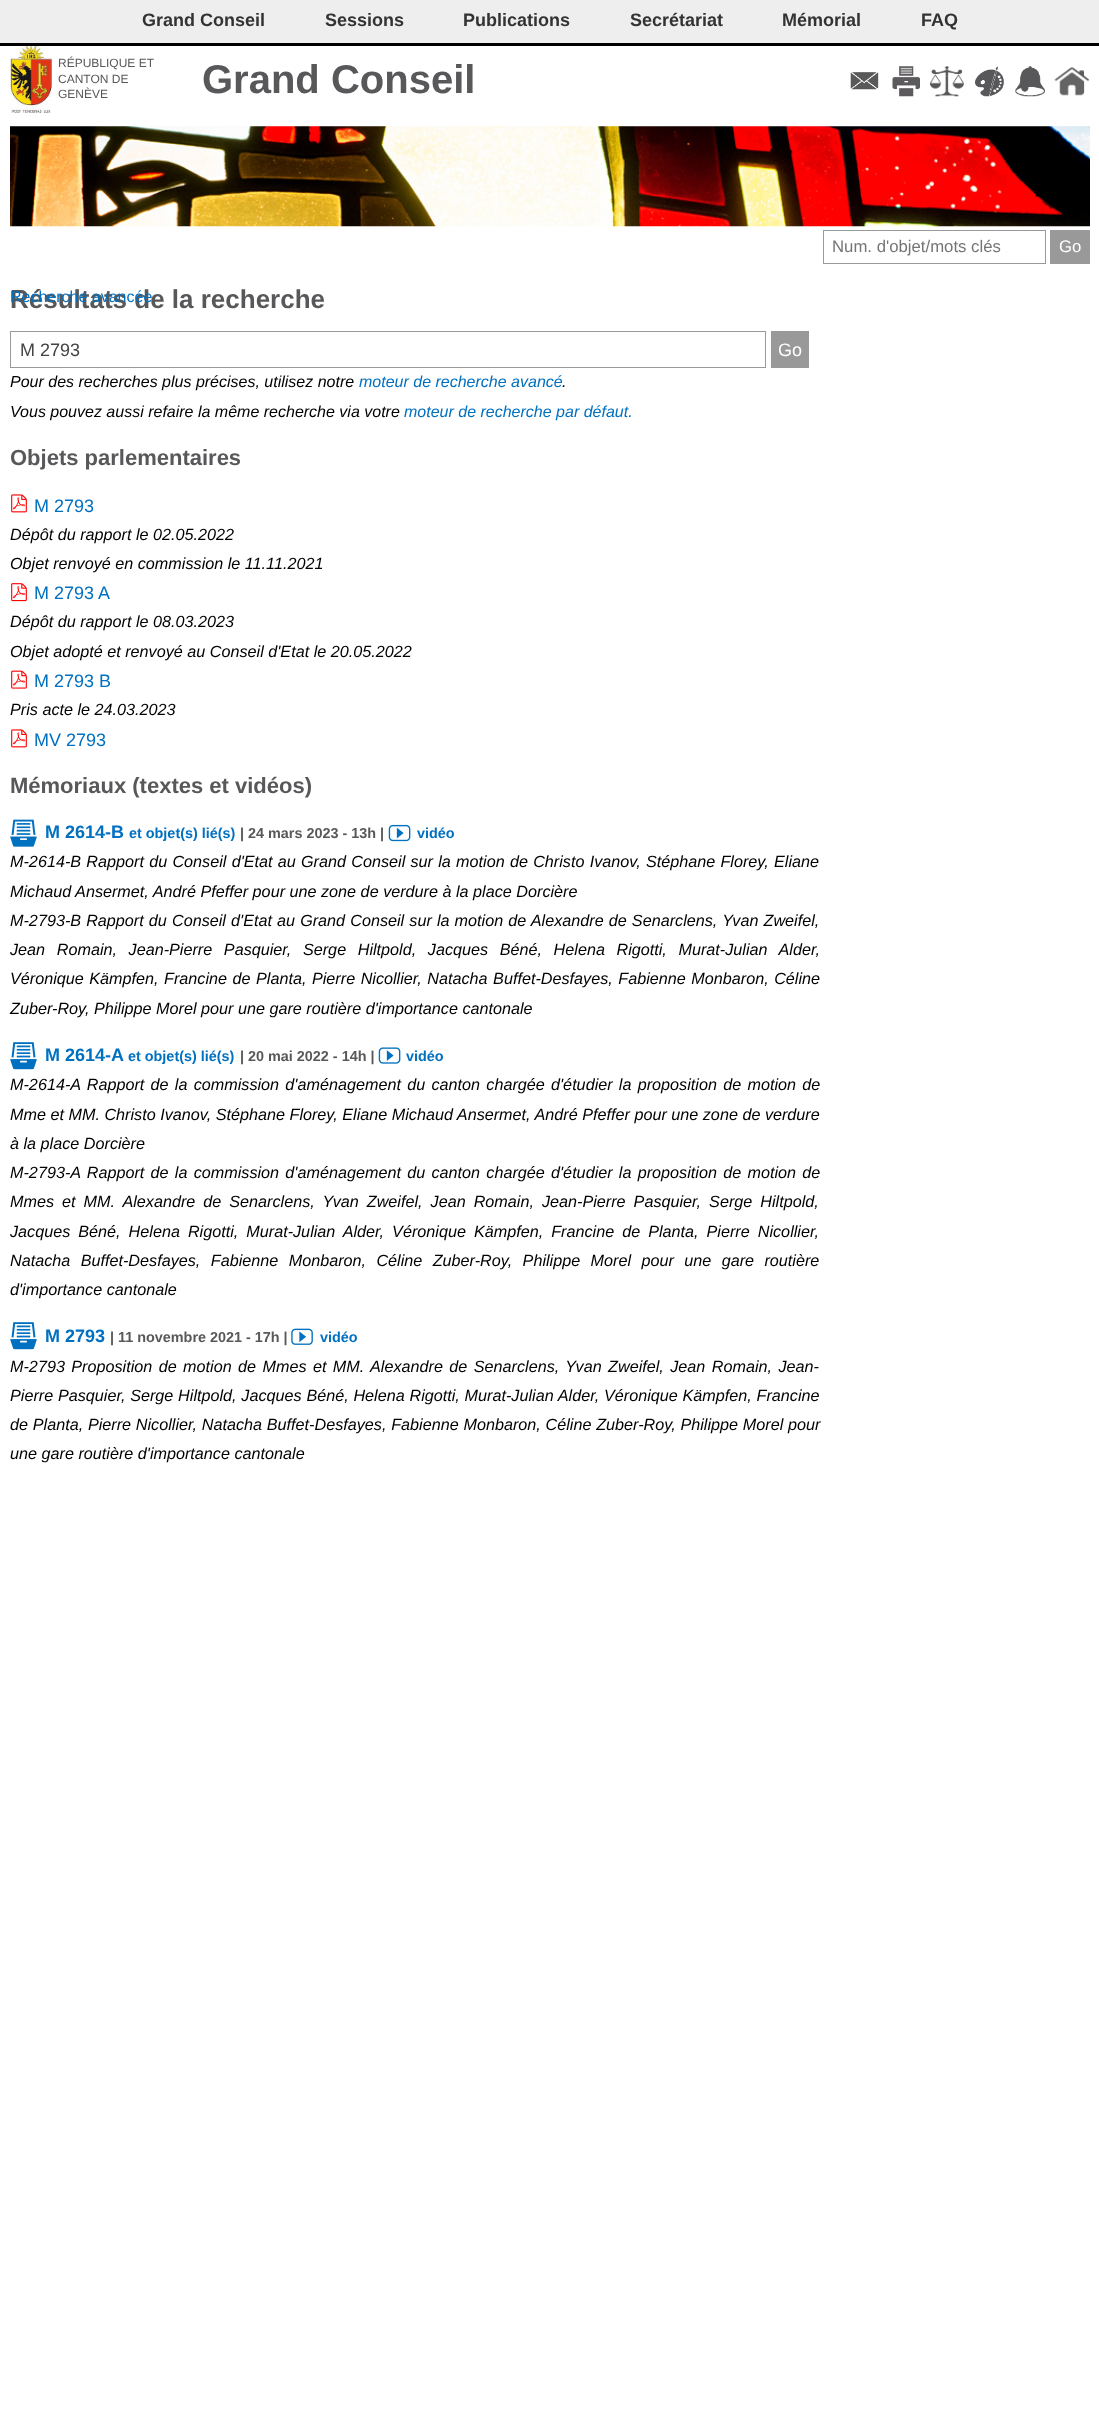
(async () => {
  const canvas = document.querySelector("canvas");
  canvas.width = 1099;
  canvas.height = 2421;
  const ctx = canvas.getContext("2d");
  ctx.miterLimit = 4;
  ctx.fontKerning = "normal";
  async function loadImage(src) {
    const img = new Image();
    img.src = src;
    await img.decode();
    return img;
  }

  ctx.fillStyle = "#ffffff";
  ctx.fillRect(0, 0, 1099, 2421);
  ctx.fillStyle = "#eeeeee";
  ctx.fillRect(0, 0, 1099, 43);
  ctx.fillStyle = "#000000";
  ctx.fillRect(0, 43, 1099, 3);
  ctx.strokeStyle = "#999999";
  ctx.strokeRect(823.5, 230.5, 222, 33);
  ctx.fillStyle = "#999999";
  ctx.fillRect(1050, 230, 40, 34);
  ctx.drawImage(await loadImage("img/1.png"), 10, 46, 43, 67);
  ctx.drawImage(await loadImage("img/2.png"), 850, 72, 29, 18);
  ctx.drawImage(await loadImage("img/3.png"), 892, 66, 28, 31);
  ctx.drawImage(await loadImage("img/4.png"), 930, 66, 34, 31);
  ctx.drawImage(await loadImage("img/5.png"), 975, 66, 29, 31);
  ctx.drawImage(await loadImage("img/6.png"), 1015, 66, 30, 31);
  ctx.drawImage(await loadImage("img/7.png"), 1054, 67, 36, 29);
  ctx.drawImage(await loadImage("img/8.png"), 10, 126, 1080, 101);
  ctx.strokeRect(10.5, 331.5, 755, 36);
  ctx.fillRect(771, 331, 38, 37);
  ctx.drawImage(await loadImage("img/9.png"), 11, 494, 16, 19);
  ctx.drawImage(await loadImage("img/10.png"), 11, 583, 16, 19);
  ctx.drawImage(await loadImage("img/11.png"), 11, 670, 16, 19);
  ctx.drawImage(await loadImage("img/9.png"), 11, 729, 16, 19);
  ctx.drawImage(await loadImage("img/12.png"), 10, 819, 27, 28);
  ctx.drawImage(await loadImage("img/13.png"), 388, 824, 23, 18);
  ctx.drawImage(await loadImage("img/14.png"), 10, 1042, 27, 28);
  ctx.drawImage(await loadImage("img/15.png"), 378, 1047, 23, 17);
  ctx.drawImage(await loadImage("img/14.png"), 10, 1322, 27, 28);
  ctx.drawImage(await loadImage("img/16.png"), 291, 1328, 22, 17);
  ctx.font = "bold 18px Liberation Sans";
  ctx.fillStyle = "#333333";
  for (const [text, x, y] of [
    ["Grand Conseil", 142, 26],
    ["Sessions", 325, 26],
    ["Publications", 463, 26],
    ["Secrétariat", 630, 26],
    ["Mémorial", 782, 26],
    ["FAQ", 921, 26],
  ]) {
    ctx.fillText(text, x, y);
  }
  ctx.font = "16.75px Liberation Sans";
  ctx.fillStyle = "#757575";
  ctx.fillText("Num. d'objet/mots clés", 832, 252);
  ctx.fillStyle = "#ffffff";
  ctx.fillText("Go", 1059, 252);
  ctx.font = "12px Liberation Sans";
  ctx.fillStyle = "#58585a";
  for (const [text, x, y] of [
    ["RÉPUBLIQUE ET", 58, 67],
    ["CANTON DE", 58, 83],
    ["GENÈVE", 58, 98],
  ]) {
    ctx.fillText(text, x, y);
  }
  ctx.font = "bold 40px Liberation Sans";
  ctx.fillText("Grand Conseil", 202, 93);
  ctx.font = "bold 26px Liberation Sans";
  ctx.fillText("Résultats de la recherche", 10, 308);
  ctx.font = "16px Liberation Sans";
  ctx.fillStyle = "#0070c0";
  ctx.fillText("Recherche avancée", 10, 302);
  ctx.font = "18px Liberation Sans";
  ctx.fillStyle = "#444444";
  ctx.fillText("M 2793", 20, 356);
  ctx.fillStyle = "#ffffff";
  ctx.fillText("Go", 778, 356);
  ctx.font = "italic 16px Liberation Sans";
  ctx.fillStyle = "#000000";
  ctx.fillText("Pour des recherches plus précises, utilisez notre", 10, 387);
  ctx.fillStyle = "#0070c0";
  ctx.fillText("moteur de recherche avancé", 359, 387);
  ctx.fillStyle = "#000000";
  ctx.fillText(".", 562, 387);
  ctx.fillText("Vous pouvez aussi refaire la même recherche via votre", 10, 417);
  ctx.fillStyle = "#0070c0";
  ctx.fillText("moteur de recherche par défaut.", 404, 417);
  ctx.font = "bold 22px Liberation Sans";
  ctx.fillStyle = "#58585a";
  ctx.fillText("Objets parlementaires", 10, 465);
  ctx.font = "18px Liberation Sans";
  ctx.fillStyle = "#0070c0";
  ctx.fillText("M 2793", 34, 512);
  ctx.font = "italic 16.2px Liberation Sans";
  ctx.fillStyle = "#000000";
  ctx.fillText("Dépôt du rapport le 02.05.2022", 10, 540);
  ctx.fillText("Objet renvoyé en commission le 11.11.2021", 10, 569);
  ctx.font = "18px Liberation Sans";
  ctx.fillStyle = "#0070c0";
  ctx.fillText("M 2793 A", 34, 599);
  ctx.font = "italic 16.2px Liberation Sans";
  ctx.fillStyle = "#000000";
  ctx.fillText("Dépôt du rapport le 08.03.2023", 10, 627);
  ctx.fillText("Objet adopté et renvoyé au Conseil d'Etat le 20.05.2022", 10, 657);
  ctx.font = "18px Liberation Sans";
  ctx.fillStyle = "#0070c0";
  ctx.fillText("M 2793 B", 34, 687);
  ctx.font = "italic 16.2px Liberation Sans";
  ctx.fillStyle = "#000000";
  ctx.fillText("Pris acte le 24.03.2023", 10, 715);
  ctx.font = "18px Liberation Sans";
  ctx.fillStyle = "#0070c0";
  ctx.fillText("MV 2793", 34, 746);
  ctx.font = "bold 22px Liberation Sans";
  ctx.fillStyle = "#58585a";
  ctx.fillText("Mémoriaux (textes et vidéos)", 10, 793);
  ctx.font = "bold 18px Liberation Sans";
  ctx.fillStyle = "#0070c0";
  ctx.fillText("M 2614-B", 45, 838);
  ctx.font = "bold 14.4px Liberation Sans";
  ctx.fillText("et objet(s) lié(s)", 129, 838);
  ctx.fillStyle = "#58585a";
  ctx.fillText("| 24 mars 2023 - 13h |", 240, 838);
  ctx.fillStyle = "#0070c0";
  ctx.fillText("vidéo", 417, 838);
  ctx.wordSpacing = "0.75px";
  ctx.font = "italic 16.2px Liberation Sans";
  ctx.fillStyle = "#000000";
  ctx.fillText("M-2614-B Rapport du Conseil d'Etat au Grand Conseil sur la motion de Christo Ivanov, Stéphane Florey, Eliane", 10, 867);
  ctx.wordSpacing = "0px";
  ctx.fillText("Michaud Ansermet, André Pfeffer pour une zone de verdure à la place Dorcière", 10, 897);
  ctx.wordSpacing = "0.6px";
  ctx.fillText("M-2793-B Rapport du Conseil d'Etat au Grand Conseil sur la motion de Alexandre de Senarclens, Yvan Zweifel,", 10, 926);
  ctx.wordSpacing = "7.1px";
  ctx.fillText("Jean Romain, Jean-Pierre Pasquier, Serge Hiltpold, Jacques Béné, Helena Rigotti, Murat-Julian Alder,", 10, 955);
  ctx.wordSpacing = "1px";
  ctx.fillText("Véronique Kämpfen, Francine de Planta, Pierre Nicollier, Natacha Buffet-Desfayes, Fabienne Monbaron, Céline", 10, 984);
  ctx.wordSpacing = "0px";
  ctx.fillText("Zuber-Roy, Philippe Morel pour une gare routière d'importance cantonale", 10, 1014);
  ctx.font = "bold 18px Liberation Sans";
  ctx.fillStyle = "#0070c0";
  ctx.fillText("M 2614-A", 45, 1061);
  ctx.font = "bold 14.4px Liberation Sans";
  ctx.fillText("et objet(s) lié(s)", 128, 1061);
  ctx.fillStyle = "#58585a";
  ctx.fillText("| 20 mai 2022 - 14h |", 240, 1061);
  ctx.fillStyle = "#0070c0";
  ctx.fillText("vidéo", 406, 1061);
  ctx.wordSpacing = "1.75px";
  ctx.font = "italic 16.2px Liberation Sans";
  ctx.fillStyle = "#000000";
  ctx.fillText("M-2614-A Rapport de la commission d'aménagement du canton chargée d'étudier la proposition de motion de", 10, 1090);
  ctx.wordSpacing = "0px";
  ctx.fillText("Mme et MM. Christo Ivanov, Stéphane Florey, Eliane Michaud Ansermet, André Pfeffer pour une zone de verdure", 10, 1120);
  ctx.fillText("à la place Dorcière", 10, 1149);
  ctx.wordSpacing = "1.75px";
  ctx.fillText("M-2793-A Rapport de la commission d'aménagement du canton chargée d'étudier la proposition de motion de", 10, 1178);
  ctx.wordSpacing = "3.5px";
  ctx.fillText("Mmes et MM. Alexandre de Senarclens, Yvan Zweifel, Jean Romain, Jean-Pierre Pasquier, Serge Hiltpold,", 10, 1207);
  ctx.fillText("Jacques Béné, Helena Rigotti, Murat-Julian Alder, Véronique Kämpfen, Francine de Planta, Pierre Nicollier,", 10, 1237);
  ctx.wordSpacing = "5.9px";
  ctx.fillText("Natacha Buffet-Desfayes, Fabienne Monbaron, Céline Zuber-Roy, Philippe Morel pour une gare routière", 10, 1266);
  ctx.wordSpacing = "0px";
  ctx.fillText("d'importance cantonale", 10, 1295);
  ctx.font = "bold 18px Liberation Sans";
  ctx.fillStyle = "#0070c0";
  ctx.fillText("M 2793", 45, 1342);
  ctx.font = "bold 14.4px Liberation Sans";
  ctx.fillStyle = "#58585a";
  ctx.fillText("| 11 novembre 2021 - 17h |", 110, 1342);
  ctx.fillStyle = "#0070c0";
  ctx.fillText("vidéo", 320, 1342);
  ctx.wordSpacing = "1.9px";
  ctx.font = "italic 16.2px Liberation Sans";
  ctx.fillStyle = "#000000";
  ctx.fillText("M-2793 Proposition de motion de Mmes et MM. Alexandre de Senarclens, Yvan Zweifel, Jean Romain, Jean-", 10, 1372);
  ctx.wordSpacing = "0.25px";
  ctx.fillText("Pierre Pasquier, Serge Hiltpold, Jacques Béné, Helena Rigotti, Murat-Julian Alder, Véronique Kämpfen, Francine", 10, 1401);
  ctx.fillText("de Planta, Pierre Nicollier, Natacha Buffet-Desfayes, Fabienne Monbaron, Céline Zuber-Roy, Philippe Morel pour", 10, 1430);
  ctx.wordSpacing = "0px";
  ctx.fillText("une gare routière d'importance cantonale", 10, 1459);
})();
